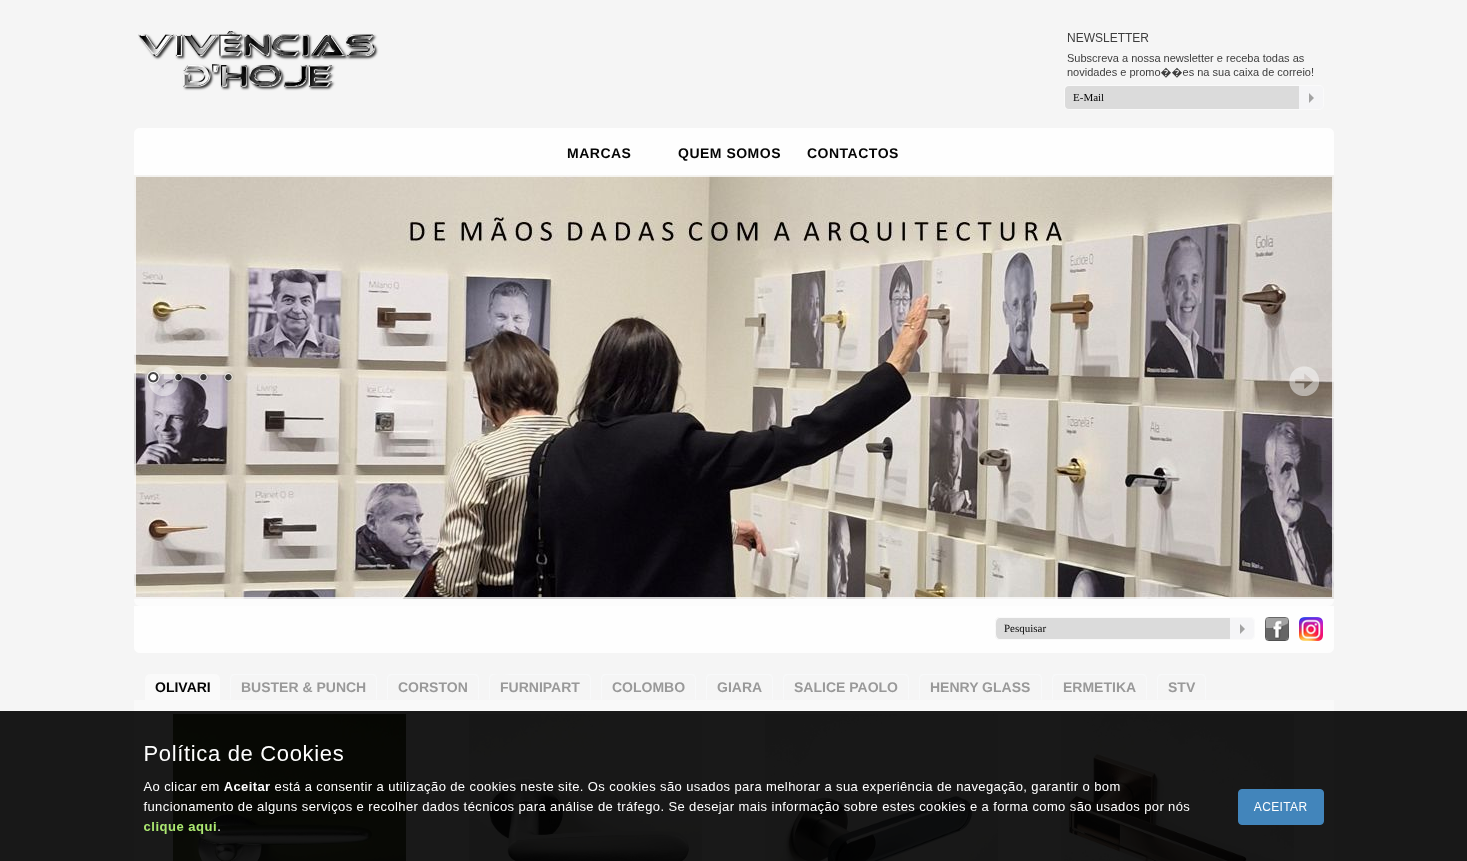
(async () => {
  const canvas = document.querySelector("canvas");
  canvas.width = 1467;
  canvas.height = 861;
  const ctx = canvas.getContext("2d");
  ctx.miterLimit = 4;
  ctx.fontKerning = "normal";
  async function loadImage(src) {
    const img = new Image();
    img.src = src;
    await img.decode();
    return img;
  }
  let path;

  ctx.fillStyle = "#f5f5f5";
  ctx.fillRect(0, 0, 1467, 861);
  ctx.drawImage(await loadImage("img/1.png"), 138, 31, 241, 60);
  ctx.drawImage(await loadImage("img/2.png"), 1064, 33, 260, 77);
  ctx.drawImage(await loadImage("img/3.png"), 134, 128, 6, 6);
  ctx.fillStyle = "#fefefe";
  ctx.fillRect(140, 128, 1188, 6);
  ctx.drawImage(await loadImage("img/4.png"), 1328, 128, 6, 6);
  ctx.fillRect(134, 134, 1200, 41);
  ctx.drawImage(await loadImage("img/5.png"), 134, 175, 1200, 424);
  ctx.drawImage(await loadImage("img/6.png"), 149, 366, 30, 30);
  ctx.drawImage(await loadImage("img/7.png"), 1289, 366, 30, 30);
  ctx.drawImage(await loadImage("img/8.png"), 144, 368, 18, 18);
  ctx.drawImage(await loadImage("img/9.png"), 172, 371, 13, 12);
  ctx.drawImage(await loadImage("img/10.png"), 197, 371, 13, 12);
  ctx.drawImage(await loadImage("img/11.png"), 222, 371, 13, 12);
  for (const [x, y, w, h, color] of [
    [134, 175, 1200, 2, "rgba(252, 252, 252, 0.8)"],
    [134, 177, 2, 420, "rgba(252, 252, 252, 0.8)"],
    [1332, 177, 2, 420, "rgba(252, 252, 252, 0.8)"],
    [134, 597, 1200, 2, "rgba(252, 252, 252, 0.8)"],
  ]) {
    ctx.fillStyle = color;
    ctx.fillRect(x, y, w, h);
  }
  ctx.fillStyle = "#fcfcfc";
  ctx.beginPath();
  ctx.roundRect(134, 599, 1200, 7, [0, 0, 6, 6]);
  ctx.fill();
  ctx.fillStyle = "#fefefe";
  ctx.fillRect(134, 606, 1200, 1);
  ctx.fillRect(134, 607, 1200, 40);
  ctx.fillStyle = "#dbdbdb";
  ctx.beginPath();
  ctx.roundRect(995, 617, 235, 23, [5, 0, 0, 5]);
  ctx.fill();
  ctx.fillStyle = "#fafafa";
  path = new Path2D("M1000 617H1230V640H1000C997 640 995 638 995 635V622C995 619 997 617 1000 617ZM1000 618H1230V639H1000C995 639 996 632 996 628C996 625 995 618 1000 618Z");
  ctx.fill(path, "evenodd");
  ctx.fillStyle = "#f5f5f7";
  ctx.beginPath();
  ctx.roundRect(1230, 617, 25, 23, [0, 5, 5, 0]);
  ctx.fill();
  ctx.fillStyle = "#fafafa";
  path = new Path2D("M1230 617H1250C1253 617 1255 619 1255 622V635C1255 638 1253 640 1250 640H1230ZM1230 618H1250C1252 618 1254 620 1254 622V635C1254 637 1252 639 1250 639H1230Z");
  ctx.fill(path, "evenodd");
  ctx.fillStyle = "#a3a3a3";
  path = new Path2D("M1240 634V624L1245 629Z");
  ctx.fill(path);
  ctx.drawImage(await loadImage("img/12.png"), 1265, 617, 24, 24);
  ctx.drawImage(await loadImage("img/13.png"), 1299, 617, 24, 24);
  ctx.drawImage(await loadImage("img/14.png"), 134, 647, 6, 6);
  ctx.fillStyle = "#fefefe";
  ctx.fillRect(140, 647, 1188, 6);
  ctx.drawImage(await loadImage("img/15.png"), 1328, 647, 6, 6);
  ctx.drawImage(await loadImage("img/16.png"), 145, 674, 75, 26);
  ctx.fillStyle = "#f8f9fa";
  path = new Path2D("M235 674C234 674 232 674 231 675L232 676C233 676 234 675 235 675H372C373 675 374 676 375 676L376 675C375 674 374 674 372 674Z");
  ctx.fill(path);
  path = new Path2D("M377 700V679C377 677.5 376.5 676 375.5 675.5L375 676C375.5 677 376 678 376 679V699Z");
  ctx.fill(path);
  path = new Path2D("M230 700L231 699V679C231 678 231.5 677 232 676L231.5 675.5C230.5 676 230 677.5 230 679Z");
  ctx.fill(path);
  path = new Path2D("M392 674C390 674 389 674 388 675L389 676L392 675H474L477 676L478 675C477 674 476 674 474 674Z");
  ctx.fill(path);
  path = new Path2D("M479 700V679C479 677.5 478.5 676 477.5 675.5L477 676C477.5 677 478 678 478 679V699Z");
  ctx.fill(path);
  path = new Path2D("M387 700L388 699V679C388 678 388.5 677 389 676L388.5 675.5C387.5 676 387 677.5 387 679Z");
  ctx.fill(path);
  path = new Path2D("M494 674C492 674 491 674 490 675L491 676C495 673 509 675 509 675H586L589 676L590 675C589 674 588 674 586 674Z");
  ctx.fill(path);
  path = new Path2D("M591 700V679C591 677.5 590.5 676 589.5 675.5L589 676C589.5 677 590 678 590 679V699Z");
  ctx.fill(path);
  path = new Path2D("M489 700L490 699V679C490 678 490.5 677 491 676L490.5 675.5C489.5 676 489 677.5 489 679Z");
  ctx.fill(path);
  path = new Path2D("M606 674C604 674 603 674 602 675L603 676L606 675H691L694 676L695 675C694 674 692 674 691 674Z");
  ctx.fill(path);
  path = new Path2D("M696 700V679C696 677.5 695.5 676 694.5 675.5L694 676C694.5 677 695 678 695 679V699Z");
  ctx.fill(path);
  path = new Path2D("M601 700L602 699V679C602 678 602.5 677 603 676L602.5 675.5C601.5 676 601 677.5 601 679Z");
  ctx.fill(path);
  path = new Path2D("M711 674C710 674 708 674 707 675L708 676L711 675H768L771 676L772 675C771 674 770 674 768 674Z");
  ctx.fill(path);
  path = new Path2D("M773 700V679C773 677.5 772.5 676 771.5 675.5L771 676C771.5 677 772 678 772 679V699Z");
  ctx.fill(path);
  path = new Path2D("M706 700L707 699V679C707 678 707.5 677 708 676L707.5 675.5C706.5 676 706 677.5 706 679Z");
  ctx.fill(path);
  path = new Path2D("M788 674C786 674 785 674 784 675L785 676L788 675H904L907 676L908 675C907 674 906 674 904 674Z");
  ctx.fill(path);
  path = new Path2D("M909 700V679C909 677.5 908.5 676 907.5 675.5L907 676C907.5 677 908 678 908 679V699Z");
  ctx.fill(path);
  path = new Path2D("M783 700L784 699V679C784 678 784.5 677 785 676L784.5 675.5C783.5 676 783 677.5 783 679Z");
  ctx.fill(path);
  path = new Path2D("M924 674C922 674 921 674 920 675L921 676L924 675H1037L1040 676L1041 675C1040 674 1038 674 1037 674Z");
  ctx.fill(path);
  path = new Path2D("M1042 700V679C1042 677.5 1041.5 676 1040.5 675.5L1040 676C1040.5 677 1041 678 1041 679V699Z");
  ctx.fill(path);
  path = new Path2D("M919 700L920 699V679C920 678 920.5 677 921 676L920.5 675.5C919.5 676 919 677.5 919 679Z");
  ctx.fill(path);
  path = new Path2D("M1057 674C1056 674 1054 674 1053 675L1054 676L1057 675H1142L1145 676L1146 675C1145 674 1144 674 1142 674Z");
  ctx.fill(path);
  path = new Path2D("M1147 700V679C1147 677.5 1146.5 676 1145.5 675.5L1145 676C1145.5 677 1146 678 1146 679V699Z");
  ctx.fill(path);
  path = new Path2D("M1052 700L1053 699V679C1053 678 1053.5 677 1054 676L1053.5 675.5C1052.5 676 1052 677.5 1052 679Z");
  ctx.fill(path);
  path = new Path2D("M1162 674C1160 674 1159 674 1158 675L1159 676C1160 676 1161 675 1162 675H1201C1202 675 1203 676 1204 676L1205 675C1204 674 1202 674 1201 674Z");
  ctx.fill(path);
  path = new Path2D("M1206 700V679C1206 677.5 1205.5 676 1204.5 675.5L1204 676C1204.5 677 1205 678 1205 679V699ZM1157 700L1158 699V679C1158 678 1158.5 677 1159 676L1158.5 675.5C1157.5 676 1157 677.5 1157 679Z");
  ctx.fill(path);
  ctx.fillStyle = "#f9f9f9";
  ctx.fillRect(134, 700, 1200, 161);
  ctx.drawImage(await loadImage("img/17.png"), 173, 714, 233, 147);
  ctx.drawImage(await loadImage("img/18.png"), 469, 714, 233, 147);
  ctx.drawImage(await loadImage("img/19.png"), 765, 714, 233, 147);
  ctx.drawImage(await loadImage("img/20.png"), 1061, 714, 233, 147);
  ctx.drawImage(await loadImage("img/21.png"), 0, 711, 1467, 150);
  ctx.letterSpacing = "0.5px";
  ctx.font = "bold 14px Liberation Sans";
  ctx.fillStyle = "#050505";
  for (const [text, x, y] of [
    ["MARCAS", 567, 158],
    ["QUEM SOMOS", 678, 158],
    ["CONTACTOS", 807, 158],
  ]) {
    ctx.fillText(text, x, y);
  }
  ctx.letterSpacing = "0px";
  ctx.font = "11px Liberation Serif";
  ctx.fillText("Pesquisar", 1004, 632);
  ctx.font = "bold 14px Liberation Sans";
  ctx.fillText("OLIVARI", 155, 692);
  ctx.fillStyle = "#999999";
  for (const [text, x, y] of [
    ["BUSTER & PUNCH", 241, 692],
    ["CORSTON", 398, 692],
    ["FURNIPART", 500, 692],
    ["COLOMBO", 612, 692],
    ["GIARA", 717, 692],
    ["SALICE PAOLO", 794, 692],
    ["HENRY GLASS", 930, 692],
    ["ERMETIKA", 1063, 692],
    ["STV", 1168, 692],
  ]) {
    ctx.fillText(text, x, y);
  }
})();
